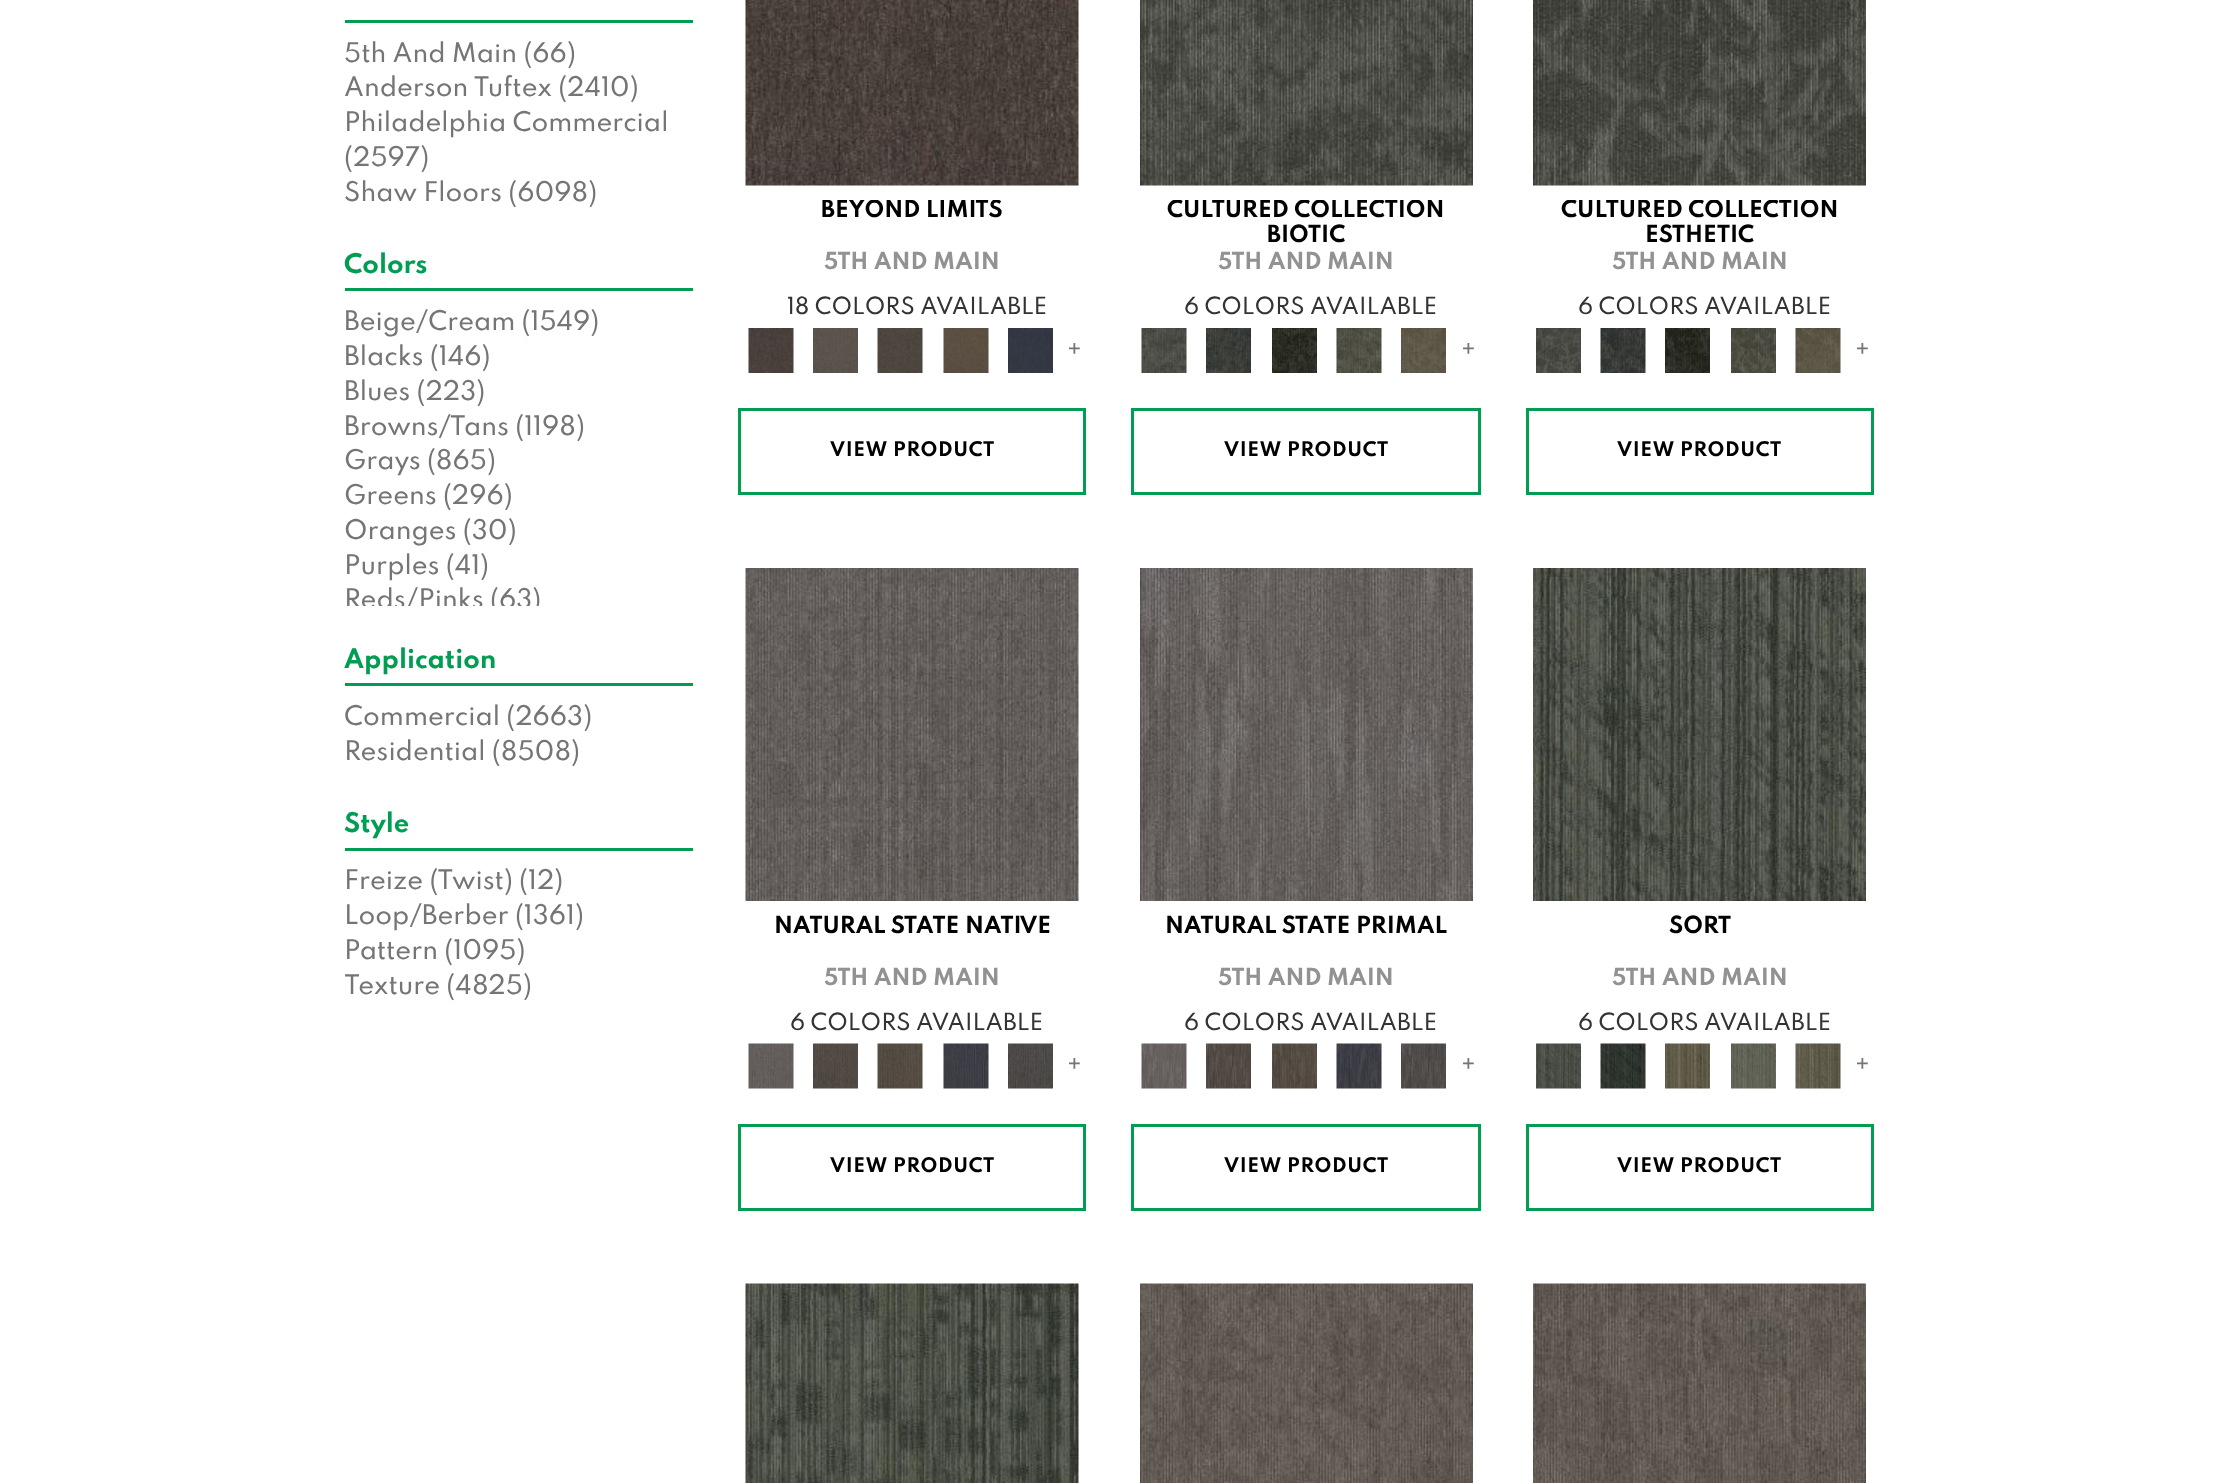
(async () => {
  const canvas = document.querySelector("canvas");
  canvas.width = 2218;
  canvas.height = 1483;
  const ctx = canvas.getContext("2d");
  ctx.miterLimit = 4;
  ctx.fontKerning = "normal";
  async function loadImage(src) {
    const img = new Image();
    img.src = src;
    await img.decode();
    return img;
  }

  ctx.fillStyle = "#ffffff";
  ctx.fillRect(0, 0, 2218, 1483);
  for (const [x, y, w, h, color] of [
    [345, 20, 348, 3, "#009d52"],
    [345, 288, 348, 3, "#009d52"],
    [345, 683, 348, 3, "#009d52"],
    [345, 848, 348, 3, "#009d52"],
  ]) {
    ctx.fillStyle = color;
    ctx.fillRect(x, y, w, h);
  }
  ctx.drawImage(await loadImage("img/1.png"), 745, 0, 334, 186);
  ctx.drawImage(await loadImage("img/2.png"), 748, 328, 46, 45);
  ctx.drawImage(await loadImage("img/3.png"), 813, 328, 45, 45);
  ctx.drawImage(await loadImage("img/4.png"), 877, 328, 46, 45);
  ctx.drawImage(await loadImage("img/5.png"), 943, 328, 46, 45);
  ctx.drawImage(await loadImage("img/6.png"), 1008, 328, 45, 45);
  ctx.strokeStyle = "#009d52";
  ctx.lineWidth = 3;
  ctx.strokeRect(739.5, 409.5, 345, 84);
  ctx.drawImage(await loadImage("img/7.png"), 1140, 0, 333, 186);
  ctx.drawImage(await loadImage("img/8.png"), 1141, 328, 46, 45);
  ctx.drawImage(await loadImage("img/9.png"), 1206, 328, 45, 45);
  ctx.drawImage(await loadImage("img/10.png"), 1272, 328, 45, 45);
  ctx.drawImage(await loadImage("img/11.png"), 1336, 328, 46, 45);
  ctx.drawImage(await loadImage("img/12.png"), 1401, 328, 45, 45);
  ctx.strokeRect(1132.5, 409.5, 347, 84);
  ctx.drawImage(await loadImage("img/13.png"), 1533, 0, 333, 186);
  ctx.drawImage(await loadImage("img/14.png"), 1536, 328, 45, 45);
  ctx.drawImage(await loadImage("img/15.png"), 1600, 328, 46, 45);
  ctx.drawImage(await loadImage("img/16.png"), 1665, 328, 45, 45);
  ctx.drawImage(await loadImage("img/17.png"), 1731, 328, 45, 45);
  ctx.drawImage(await loadImage("img/18.png"), 1795, 328, 46, 45);
  ctx.strokeRect(1527.5, 409.5, 345, 84);
  ctx.drawImage(await loadImage("img/19.png"), 745, 568, 334, 333);
  ctx.drawImage(await loadImage("img/20.png"), 748, 1043, 46, 46);
  ctx.drawImage(await loadImage("img/21.png"), 813, 1043, 45, 46);
  ctx.drawImage(await loadImage("img/22.png"), 877, 1043, 46, 46);
  ctx.drawImage(await loadImage("img/23.png"), 943, 1043, 46, 46);
  ctx.drawImage(await loadImage("img/24.png"), 1008, 1043, 45, 46);
  ctx.strokeRect(739.5, 1125.5, 345, 84);
  ctx.drawImage(await loadImage("img/25.png"), 1140, 568, 333, 333);
  ctx.drawImage(await loadImage("img/26.png"), 1141, 1043, 46, 46);
  ctx.drawImage(await loadImage("img/27.png"), 1206, 1043, 45, 46);
  ctx.drawImage(await loadImage("img/28.png"), 1272, 1043, 45, 46);
  ctx.drawImage(await loadImage("img/29.png"), 1336, 1043, 46, 46);
  ctx.drawImage(await loadImage("img/30.png"), 1401, 1043, 45, 46);
  ctx.strokeRect(1132.5, 1125.5, 347, 84);
  ctx.drawImage(await loadImage("img/31.png"), 1533, 568, 333, 333);
  ctx.drawImage(await loadImage("img/32.png"), 1536, 1043, 45, 46);
  ctx.drawImage(await loadImage("img/33.png"), 1600, 1043, 46, 46);
  ctx.drawImage(await loadImage("img/34.png"), 1665, 1043, 45, 46);
  ctx.drawImage(await loadImage("img/35.png"), 1731, 1043, 45, 46);
  ctx.drawImage(await loadImage("img/36.png"), 1795, 1043, 46, 46);
  ctx.strokeRect(1527.5, 1125.5, 345, 84);
  ctx.drawImage(await loadImage("img/37.png"), 745, 1283, 334, 200);
  ctx.drawImage(await loadImage("img/38.png"), 1140, 1283, 333, 200);
  ctx.drawImage(await loadImage("img/39.png"), 1533, 1283, 333, 200);
  ctx.font = "500 24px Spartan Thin";
  ctx.fillStyle = "#757575";
  for (const [text, x, y] of [
    ["5th And Main (66)", 344, 62],
    ["Anderson Tuftex (2410)", 344, 96],
    ["Philadelphia Commercial", 344, 131],
    ["(2597)", 344, 166],
    ["Shaw Floors (6098)", 344, 201],
  ]) {
    ctx.fillText(text, x, y);
  }
  ctx.font = "bold 24px Spartan Thin";
  ctx.fillStyle = "#009d52";
  ctx.fillText("Colors", 344, 273);
  ctx.font = "500 24px Spartan Thin";
  ctx.fillStyle = "#757575";
  for (const [text, x, y] of [
    ["Beige/Cream (1549)", 344, 330],
    ["Blacks (146)", 344, 365],
    ["Blues (223)", 344, 400],
    ["Browns/Tans (1198)", 344, 435],
    ["Grays (865)", 344, 469],
    ["Greens (296)", 344, 504],
    ["Oranges (30)", 344, 539],
    ["Purples (41)", 344, 574],
  ]) {
    ctx.fillText(text, x, y);
  }
  ctx.save();
  ctx.beginPath();
  ctx.rect(345, 306, 348, 300);
  ctx.clip();
  ctx.fillText("Reds/Pinks (63)", 344, 608);
  ctx.restore();
  ctx.font = "bold 24px Spartan Thin";
  ctx.fillStyle = "#009d52";
  ctx.fillText("Application", 344, 668);
  ctx.font = "500 24px Spartan Thin";
  ctx.fillStyle = "#757575";
  ctx.fillText("Commercial (2663)", 344, 725);
  ctx.fillText("Residential (8508)", 344, 760);
  ctx.font = "bold 24px Spartan Thin";
  ctx.fillStyle = "#009d52";
  ctx.fillText("Style", 344, 832);
  ctx.font = "500 24px Spartan Thin";
  ctx.fillStyle = "#757575";
  for (const [text, x, y] of [
    ["Freize (Twist) (12)", 344, 889],
    ["Loop/Berber (1361)", 344, 924],
    ["Pattern (1095)", 344, 959],
    ["Texture (4825)", 344, 994],
  ]) {
    ctx.fillText(text, x, y);
  }
  ctx.save();
  ctx.beginPath();
  ctx.rect(747, 200, 330, 51);
  ctx.clip();
  ctx.font = "bold 21px Spartan Thin";
  ctx.fillStyle = "#000000";
  ctx.fillText("BEYOND LIMITS", 821, 217);
  ctx.restore();
  ctx.font = "bold 21px Spartan Thin";
  ctx.fillStyle = "#929292";
  ctx.fillText("5TH AND MAIN", 824, 269);
  ctx.font = "500 21px Spartan Thin";
  ctx.fillStyle = "#333333";
  ctx.fillText("18 COLORS AVAILABLE", 787, 314);
  ctx.fillStyle = "#757575";
  ctx.fillText("+", 1067, 357);
  ctx.letterSpacing = "0.6px";
  ctx.font = "bold 18px Spartan Thin";
  ctx.fillStyle = "#000000";
  ctx.fillText("VIEW PRODUCT", 830, 456);
  ctx.save();
  ctx.beginPath();
  ctx.rect(1140, 200, 332, 51);
  ctx.clip();
  ctx.letterSpacing = "0px";
  ctx.font = "bold 21px Spartan Thin";
  ctx.fillText("CULTURED COLLECTION", 1167, 217);
  ctx.restore();
  ctx.letterSpacing = "0px";
  ctx.font = "bold 21px Spartan Thin";
  ctx.fillText("BIOTIC", 1267, 242);
  ctx.fillStyle = "#929292";
  ctx.fillText("5TH AND MAIN", 1218, 269);
  ctx.font = "500 21px Spartan Thin";
  ctx.fillStyle = "#333333";
  ctx.fillText("6 COLORS AVAILABLE", 1184, 314);
  ctx.fillStyle = "#757575";
  ctx.fillText("+", 1461, 357);
  ctx.letterSpacing = "0.6px";
  ctx.font = "bold 18px Spartan Thin";
  ctx.fillStyle = "#000000";
  ctx.fillText("VIEW PRODUCT", 1224, 456);
  ctx.save();
  ctx.beginPath();
  ctx.rect(1535, 200, 330, 51);
  ctx.clip();
  ctx.letterSpacing = "0px";
  ctx.font = "bold 21px Spartan Thin";
  ctx.fillText("CULTURED COLLECTION", 1561, 217);
  ctx.restore();
  ctx.letterSpacing = "0px";
  ctx.font = "bold 21px Spartan Thin";
  ctx.fillText("ESTHETIC", 1645, 242);
  ctx.fillStyle = "#929292";
  ctx.fillText("5TH AND MAIN", 1612, 269);
  ctx.font = "500 21px Spartan Thin";
  ctx.fillStyle = "#333333";
  ctx.fillText("6 COLORS AVAILABLE", 1578, 314);
  ctx.fillStyle = "#757575";
  ctx.fillText("+", 1855, 357);
  ctx.letterSpacing = "0.6px";
  ctx.font = "bold 18px Spartan Thin";
  ctx.fillStyle = "#000000";
  ctx.fillText("VIEW PRODUCT", 1617, 456);
  ctx.letterSpacing = "0px";
  ctx.font = "bold 21px Spartan Thin";
  ctx.fillText("NATURAL STATE NATIVE", 774, 933);
  ctx.fillStyle = "#929292";
  ctx.fillText("5TH AND MAIN", 824, 985);
  ctx.font = "500 21px Spartan Thin";
  ctx.fillStyle = "#333333";
  ctx.fillText("6 COLORS AVAILABLE", 790, 1030);
  ctx.fillStyle = "#757575";
  ctx.fillText("+", 1067, 1072);
  ctx.letterSpacing = "0.6px";
  ctx.font = "bold 18px Spartan Thin";
  ctx.fillStyle = "#000000";
  ctx.fillText("VIEW PRODUCT", 830, 1172);
  ctx.letterSpacing = "0px";
  ctx.font = "bold 21px Spartan Thin";
  ctx.fillText("NATURAL STATE PRIMAL", 1165, 933);
  ctx.fillStyle = "#929292";
  ctx.fillText("5TH AND MAIN", 1218, 985);
  ctx.font = "500 21px Spartan Thin";
  ctx.fillStyle = "#333333";
  ctx.fillText("6 COLORS AVAILABLE", 1184, 1030);
  ctx.fillStyle = "#757575";
  ctx.fillText("+", 1461, 1072);
  ctx.letterSpacing = "0.6px";
  ctx.font = "bold 18px Spartan Thin";
  ctx.fillStyle = "#000000";
  ctx.fillText("VIEW PRODUCT", 1224, 1172);
  ctx.letterSpacing = "0px";
  ctx.font = "bold 21px Spartan Thin";
  ctx.fillText("SORT", 1669, 933);
  ctx.fillStyle = "#929292";
  ctx.fillText("5TH AND MAIN", 1612, 985);
  ctx.font = "500 21px Spartan Thin";
  ctx.fillStyle = "#333333";
  ctx.fillText("6 COLORS AVAILABLE", 1578, 1030);
  ctx.fillStyle = "#757575";
  ctx.fillText("+", 1855, 1072);
  ctx.letterSpacing = "0.6px";
  ctx.font = "bold 18px Spartan Thin";
  ctx.fillStyle = "#000000";
  ctx.fillText("VIEW PRODUCT", 1617, 1172);
})();
